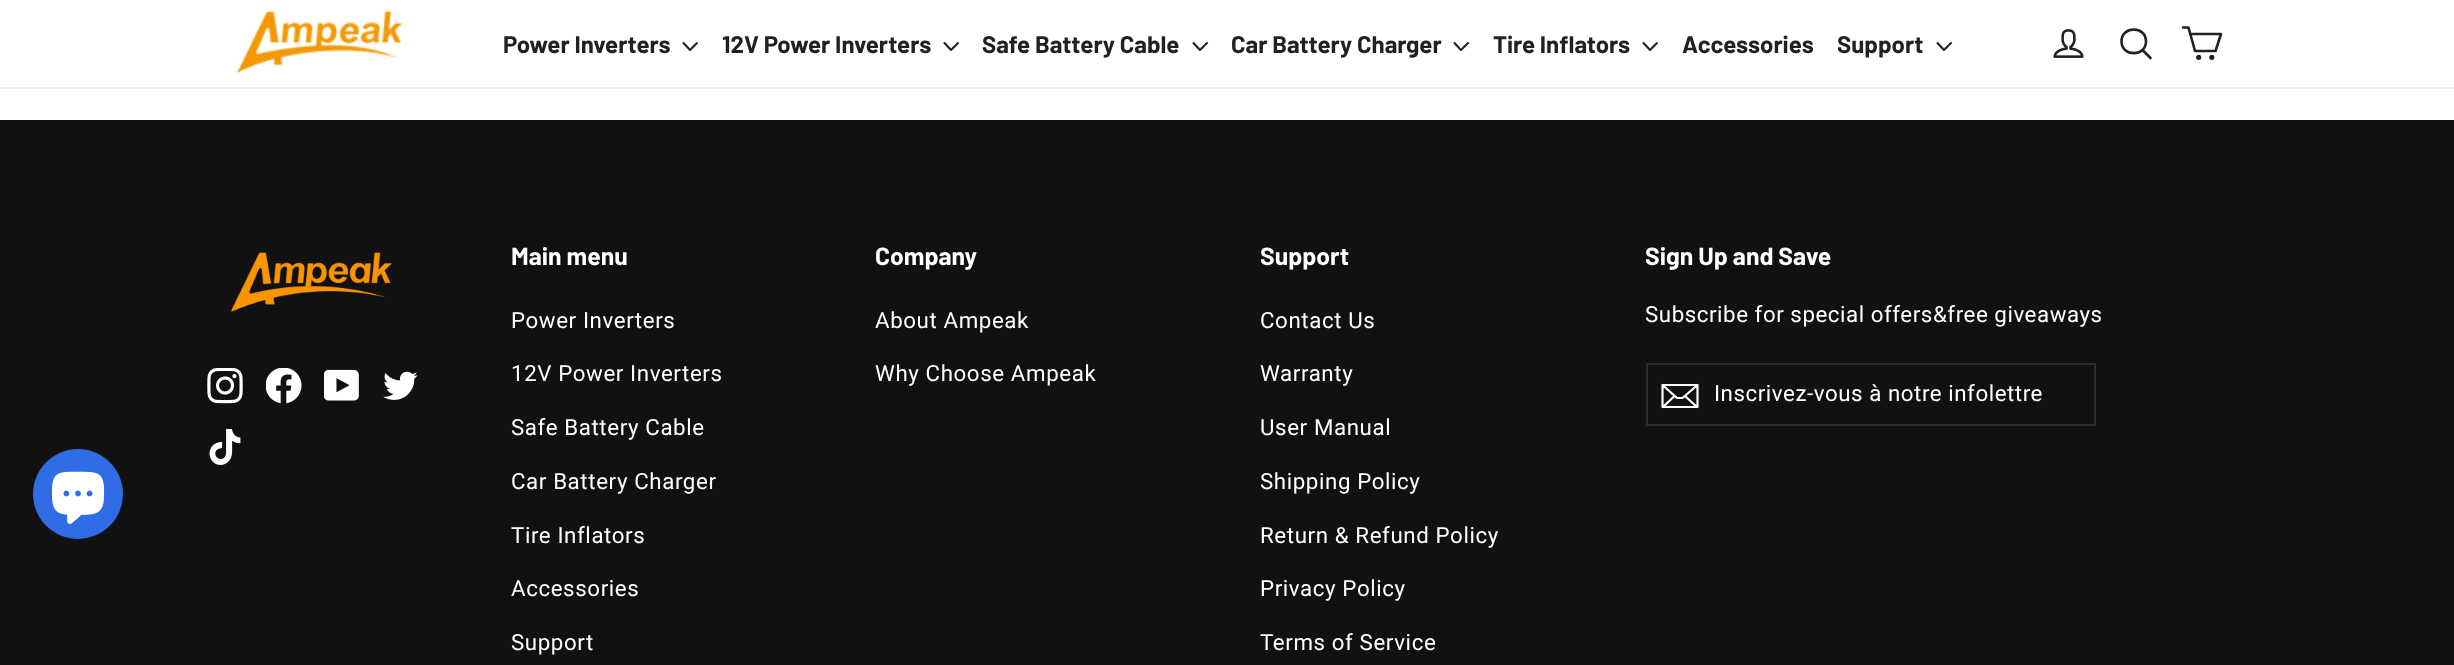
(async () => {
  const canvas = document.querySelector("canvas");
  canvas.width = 2454;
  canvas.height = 665;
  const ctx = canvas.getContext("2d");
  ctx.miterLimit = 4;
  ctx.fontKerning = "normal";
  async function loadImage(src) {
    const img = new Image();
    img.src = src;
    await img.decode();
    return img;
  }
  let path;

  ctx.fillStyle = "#ffffff";
  ctx.fillRect(0, 0, 2454, 665);
  ctx.fillStyle = "#111111";
  ctx.fillRect(0, 120, 2454, 545);
  ctx.fillStyle = "#2f6ce5";
  ctx.beginPath();
  ctx.arc(78, 494, 45, 0, Math.PI * 2);
  ctx.fill();
  ctx.drawImage(await loadImage("img/1.png"), 51, 471, 54, 53);
  ctx.fillStyle = "#eeeeee";
  ctx.fillRect(0, 87, 2454, 2);
  ctx.drawImage(await loadImage("img/2.png"), 237, 10, 165, 64);
  path = new Path2D("M683.5 43L690 50L697 43");
  ctx.strokeStyle = "#23211f";
  ctx.lineWidth = 2.1;
  ctx.lineCap = "round";
  ctx.lineJoin = "round";
  ctx.stroke(path);
  path = new Path2D("M944.5 43L951 50L958 43");
  ctx.stroke(path);
  path = new Path2D("M1193.5 43L1200 50L1207 43");
  ctx.stroke(path);
  path = new Path2D("M1454.5 43L1461 50L1468 43");
  ctx.stroke(path);
  path = new Path2D("M1643.5 43L1650 50L1657 43");
  ctx.stroke(path);
  path = new Path2D("M1937.5 43L1944 50L1951 43");
  ctx.stroke(path);
  ctx.drawImage(await loadImage("img/3.png"), 2053, 29, 31, 29);
  path = new Path2D("M2146 41.5C2146 57 2121.5 57 2121.5 41.5C2121.5 25.5 2146 25.5 2146 41.5ZM2150.5 58L2142.5 50");
  ctx.lineWidth = 2.6;
  ctx.stroke(path);
  path = new Path2D("M2190 34H2221L2215.5 51H2195L2188.5 27.5H2183");
  ctx.stroke(path);
  ctx.beginPath();
  ctx.arc(2198.7, 57.3, 1.3, 0, Math.PI * 2);
  ctx.stroke();
  ctx.beginPath();
  ctx.arc(2211.8, 57.3, 1.3, 0, Math.PI * 2);
  ctx.stroke();
  ctx.drawImage(await loadImage("img/4.png"), 231, 252, 161, 60);
  ctx.drawImage(await loadImage("img/5.png"), 207, 368, 36, 36);
  ctx.drawImage(await loadImage("img/6.png"), 266, 368, 36, 36);
  ctx.drawImage(await loadImage("img/7.png"), 324, 369, 35, 32);
  ctx.drawImage(await loadImage("img/8.png"), 383, 371, 35, 29);
  ctx.drawImage(await loadImage("img/9.png"), 209, 429, 32, 36);
  ctx.strokeStyle = "#2e2e2e";
  ctx.lineWidth = 2;
  ctx.lineJoin = "miter";
  ctx.strokeRect(1647, 364, 448, 61);
  path = new Path2D("M1697.5 407H1662.5V385H1697.5ZM1662.5 385L1677 398H1682.5L1697.5 385M1674.5 396L1663 407M1697 407L1685 396");
  ctx.strokeStyle = "#ffffff";
  ctx.lineWidth = 2.2;
  ctx.lineJoin = "round";
  ctx.stroke(path);
  ctx.font = "bold 24px Barlow";
  ctx.fillStyle = "#23211f";
  for (const [text, x, y] of [
    ["Power Inverters", 503, 53],
    ["12V Power Inverters", 722, 53],
    ["Safe Battery Cable", 982, 53],
    ["Car Battery Charger", 1231, 53],
    ["Tire Inflators", 1493, 53],
    ["Accessories", 1682, 53],
    ["Support", 1837, 53],
  ]) {
    ctx.fillText(text, x, y);
  }
  ctx.font = "bold 24.75px Barlow";
  ctx.fillStyle = "#ffffff";
  ctx.fillText("Main menu", 511, 265);
  ctx.letterSpacing = "0.6px";
  ctx.font = "22.3px Roboto";
  for (const [text, x, y] of [
    ["Power Inverters", 511, 328],
    ["12V Power Inverters", 511, 381],
    ["Safe Battery Cable", 511, 435],
    ["Car Battery Charger", 511, 489],
    ["Tire Inflators", 511, 543],
    ["Accessories", 511, 596],
    ["Support", 511, 650],
  ]) {
    ctx.fillText(text, x, y);
  }
  ctx.letterSpacing = "0px";
  ctx.font = "bold 24.75px Barlow";
  ctx.fillText("Company", 875, 265);
  ctx.letterSpacing = "0.6px";
  ctx.font = "22.3px Roboto";
  ctx.fillText("About Ampeak", 875, 328);
  ctx.fillText("Why Choose Ampeak", 875, 381);
  ctx.letterSpacing = "0px";
  ctx.font = "bold 24.75px Barlow";
  ctx.fillText("Support", 1260, 265);
  ctx.letterSpacing = "0.6px";
  ctx.font = "22.3px Roboto";
  for (const [text, x, y] of [
    ["Contact Us", 1260, 328],
    ["Warranty", 1260, 381],
    ["User Manual", 1260, 435],
    ["Shipping Policy", 1260, 489],
    ["Return & Refund Policy", 1260, 543],
    ["Privacy Policy", 1260, 596],
    ["Terms of Service", 1260, 650],
  ]) {
    ctx.fillText(text, x, y);
  }
  ctx.letterSpacing = "0px";
  ctx.font = "bold 24.75px Barlow";
  ctx.fillText("Sign Up and Save", 1645, 265);
  ctx.letterSpacing = "0.55px";
  ctx.font = "22.3px Roboto";
  ctx.fillText("Subscribe for special offers&free giveaways", 1645, 322);
  ctx.fillText("Inscrivez-vous à notre infolettre", 1714, 401);
})();
